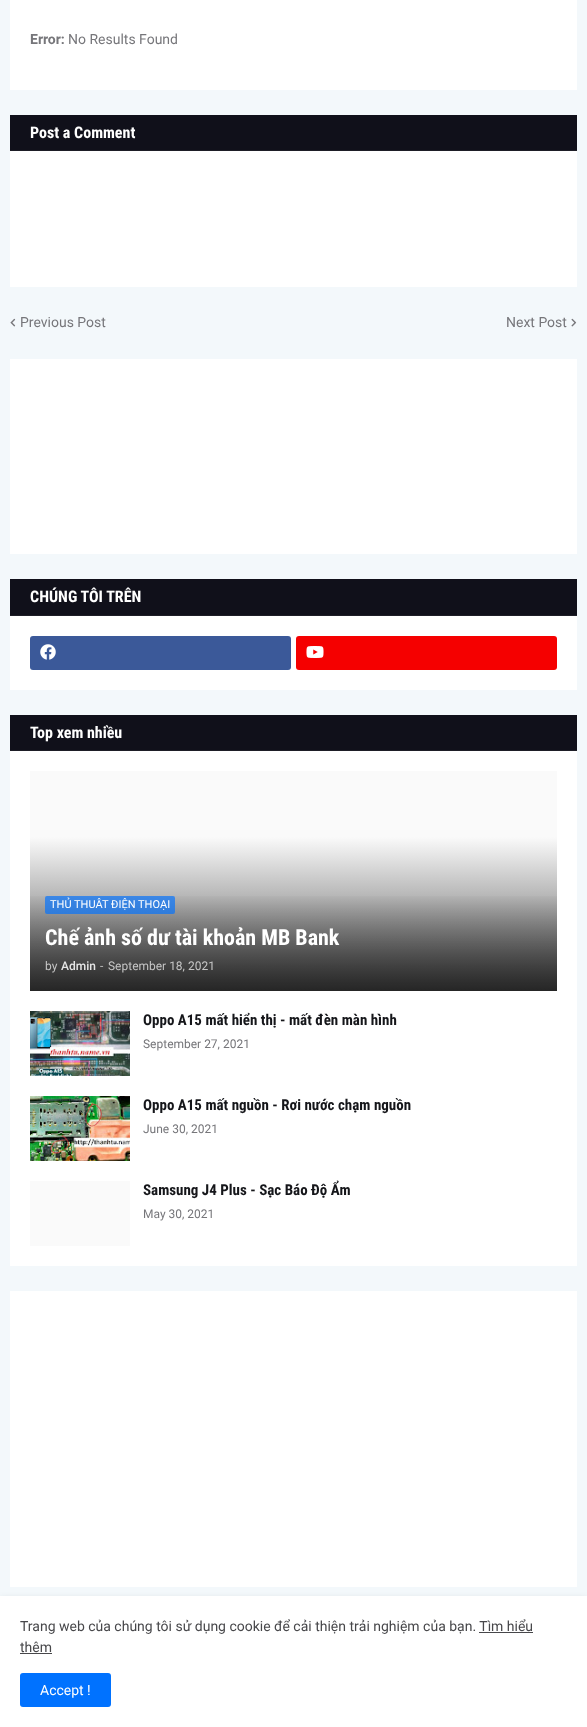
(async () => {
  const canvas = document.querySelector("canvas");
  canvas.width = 587;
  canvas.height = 1727;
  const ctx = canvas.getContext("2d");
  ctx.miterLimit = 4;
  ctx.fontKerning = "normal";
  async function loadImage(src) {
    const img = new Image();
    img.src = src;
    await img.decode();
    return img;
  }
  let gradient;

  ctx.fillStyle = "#f3f8fb";
  ctx.fillRect(0, 0, 587, 1727);
  for (const [x, y, w, h, color] of [
    [10, 0, 567, 90, "#ffffff"],
    [10, 151, 567, 136, "#ffffff"],
    [10, 115, 567, 35, "#10101a"],
    [10, 150, 567, 1, "#1e1e27"],
  ]) {
    ctx.fillStyle = color;
    ctx.fillRect(x, y, w, h);
  }
  ctx.drawImage(await loadImage("img/1.png"), 10, 318, 6, 9);
  ctx.drawImage(await loadImage("img/2.png"), 571, 318, 6, 9);
  for (const [x, y, w, h, color] of [
    [10, 359, 567, 195, "#ffffff"],
    [10, 616, 567, 74, "#ffffff"],
    [10, 579, 567, 36, "#10101a"],
    [10, 615, 567, 1, "#1e1e27"],
  ]) {
    ctx.fillStyle = color;
    ctx.fillRect(x, y, w, h);
  }
  ctx.fillStyle = "#3b5999";
  ctx.beginPath();
  ctx.roundRect(30, 636, 261, 34, 3);
  ctx.fill();
  ctx.drawImage(await loadImage("img/3.png"), 40, 644, 16, 16);
  ctx.fillStyle = "#f50000";
  ctx.beginPath();
  ctx.roundRect(296, 636, 261, 34, 3);
  ctx.fill();
  ctx.drawImage(await loadImage("img/4.png"), 306, 646, 18, 12);
  for (const [x, y, w, h, color] of [
    [10, 751, 567, 515, "#ffffff"],
    [10, 715, 567, 35, "#10101a"],
    [10, 750, 567, 1, "#1e1e27"],
    [30, 771, 527, 66, "#fafafa"],
  ]) {
    ctx.fillStyle = color;
    ctx.fillRect(x, y, w, h);
  }
  gradient = ctx.createLinearGradient(294, 837, 294, 991);
  gradient.addColorStop(0, "#fafafa");
  gradient.addColorStop(1, "#4b4b4b");
  ctx.fillStyle = gradient;
  ctx.fillRect(30, 837, 527, 154);
  gradient = ctx.createLinearGradient(294, 881, 294, 991);
  gradient.addColorStop(0.1, "rgba(0, 0, 0, 0)");
  gradient.addColorStop(1, "rgba(0, 0, 0, 0.5)");
  ctx.fillStyle = gradient;
  ctx.fillRect(30, 896, 527, 95);
  ctx.fillStyle = "rgba(0, 114, 255, 0.67)";
  ctx.beginPath();
  ctx.roundRect(45, 896, 130, 18, 2);
  ctx.fill();
  ctx.drawImage(await loadImage("img/5.png"), 30, 1011, 100, 65);
  ctx.drawImage(await loadImage("img/6.png"), 30, 1096, 100, 65);
  ctx.fillStyle = "#fafafa";
  ctx.fillRect(30, 1181, 100, 65);
  ctx.fillStyle = "#ffffff";
  ctx.fillRect(10, 1291, 567, 296);
  ctx.fillStyle = "rgba(0, 0, 0, 0.1)";
  ctx.filter = "blur(3px)";
  ctx.beginPath();
  ctx.rect(0, 1598, 587, 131);
  ctx.fill();
  ctx.filter = "none";
  for (const [x, y, w, h, color] of [
    [0, 1596, 587, 131, "#ffffff"],
    [479, 1632, 54, 1, "#47474a"],
    [20, 1653, 32, 1, "#47474a"],
  ]) {
    ctx.fillStyle = color;
    ctx.fillRect(x, y, w, h);
  }
  ctx.fillStyle = "#0072ff";
  ctx.beginPath();
  ctx.roundRect(20, 1673, 91, 34, 3);
  ctx.fill();
  ctx.font = "bold 14px Roboto";
  ctx.fillStyle = "#76767a";
  ctx.fillText("Error:", 30, 44);
  ctx.font = "14px Roboto";
  ctx.fillText("No Results Found", 68, 44);
  ctx.font = "bold 16px Roboto Condensed";
  ctx.fillStyle = "#ffffff";
  ctx.fillText("Post a Comment", 30, 138);
  ctx.font = "14px Roboto";
  ctx.fillStyle = "#76767a";
  ctx.fillText("Previous Post", 20, 327);
  ctx.fillText("Next Post", 506, 327);
  ctx.font = "bold 16px Roboto Condensed";
  ctx.fillStyle = "#ffffff";
  ctx.fillText("CHÚNG TÔI TRÊN", 30, 602);
  ctx.fillText("Top xem nhiều", 30, 738);
  ctx.font = "11px Roboto";
  ctx.fillText("THỦ THUÂT ĐIỆN THOẠI", 50, 908);
  ctx.font = "bold 22px Roboto Condensed";
  ctx.fillText("Chế ảnh số dư tài khoản MB Bank", 45, 945);
  ctx.font = "12px Roboto";
  ctx.fillStyle = "#c5c5c5";
  ctx.fillText("by", 45, 970);
  ctx.font = "500 12px Roboto";
  ctx.fillStyle = "#e5e5e5";
  ctx.fillText("Admin", 61, 970);
  ctx.font = "12px Roboto";
  ctx.fillStyle = "#c5c5c5";
  ctx.fillText("-", 100, 970);
  ctx.fillText("September 18, 2021", 108, 970);
  ctx.font = "bold 15px Roboto Condensed";
  ctx.fillStyle = "#15161a";
  ctx.fillText("Oppo A15 mất hiển thị - mất đèn màn hình", 143, 1025);
  ctx.font = "12px Roboto";
  ctx.fillStyle = "#76767a";
  ctx.fillText("September 27, 2021", 143, 1048);
  ctx.font = "bold 15px Roboto Condensed";
  ctx.fillStyle = "#15161a";
  ctx.fillText("Oppo A15 mất nguồn - Rơi nước chạm nguồn", 143, 1110);
  ctx.font = "12px Roboto";
  ctx.fillStyle = "#76767a";
  ctx.fillText("June 30, 2021", 143, 1133);
  ctx.font = "bold 15px Roboto Condensed";
  ctx.fillStyle = "#15161a";
  ctx.fillText("Samsung J4 Plus - Sạc Báo Độ Ẩm", 143, 1195);
  ctx.font = "12px Roboto";
  ctx.fillStyle = "#76767a";
  ctx.fillText("May 30, 2021", 143, 1218);
  ctx.font = "14px Roboto";
  ctx.fillStyle = "#47474a";
  ctx.fillText("Trang web của chúng tôi sử dụng cookie để cải thiện trải nghiệm của bạn. Tìm hiểu", 20, 1631);
  ctx.fillText("thêm", 20, 1652);
  ctx.fillStyle = "#ffffff";
  ctx.fillText("Accept !", 40, 1695);
})();
